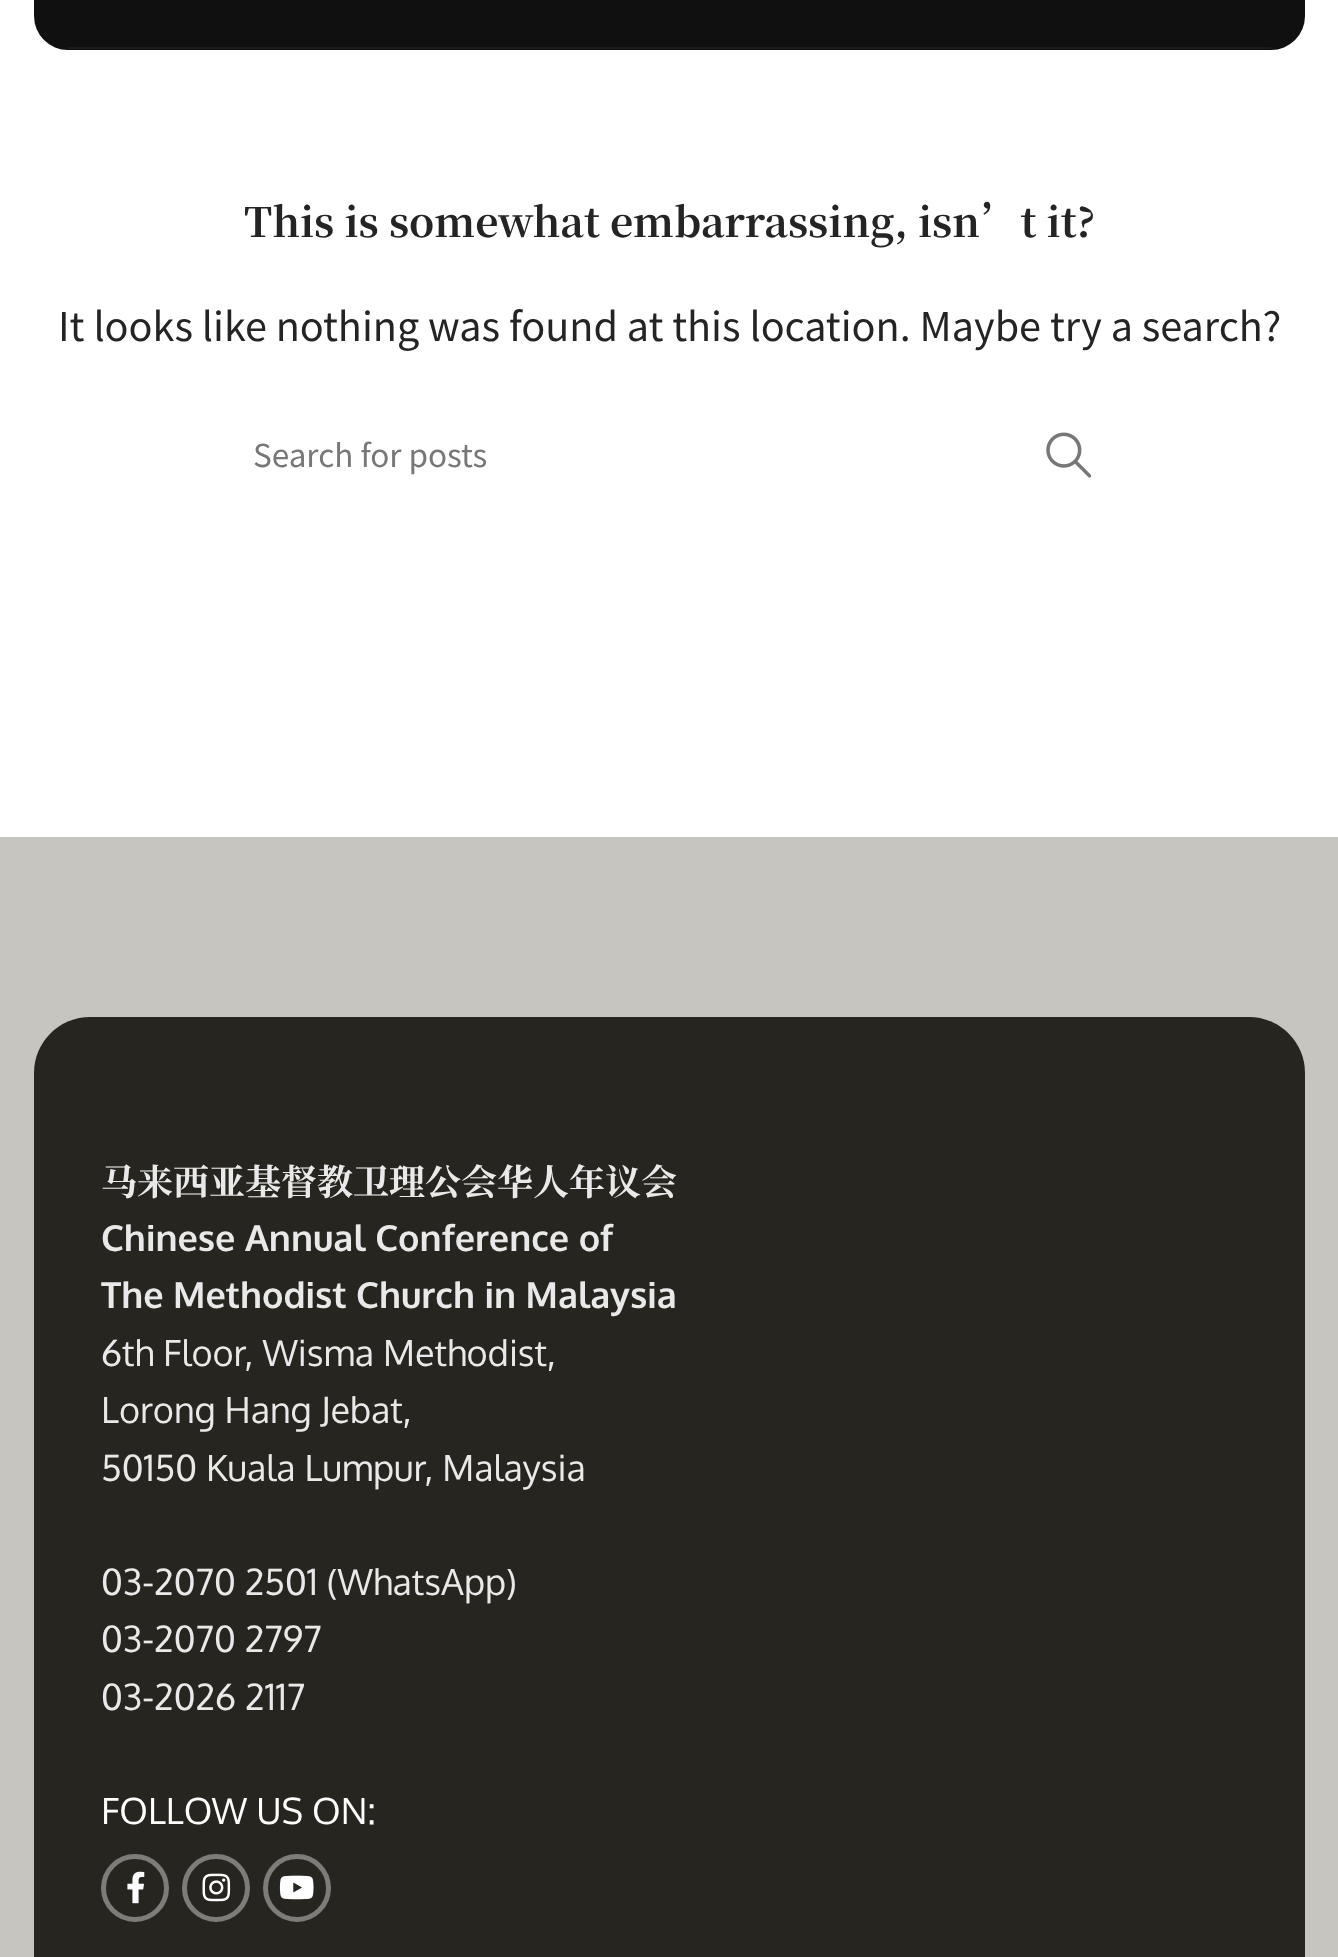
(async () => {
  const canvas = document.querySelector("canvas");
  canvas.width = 1338;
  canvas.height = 1957;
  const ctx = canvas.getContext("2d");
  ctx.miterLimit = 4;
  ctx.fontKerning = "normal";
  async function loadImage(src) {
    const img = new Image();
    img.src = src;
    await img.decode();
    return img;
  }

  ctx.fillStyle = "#ffffff";
  ctx.fillRect(0, 0, 1338, 1957);
  ctx.fillStyle = "#101010";
  ctx.beginPath();
  ctx.roundRect(34, -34, 1271, 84, 34);
  ctx.fill();
  ctx.fillStyle = "#1c1c1c";
  ctx.fillRect(68, 47, 1203, 2);
  ctx.drawImage(await loadImage("img/1.png"), 1046, 432, 46, 46);
  ctx.fillStyle = "#c7c5c0";
  ctx.fillRect(0, 837, 1338, 1120);
  ctx.fillStyle = "#27251f";
  ctx.beginPath();
  ctx.roundRect(34, 1017, 1271, 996, 56);
  ctx.fill();
  ctx.beginPath();
  ctx.arc(135, 1888, 31.5, 0, Math.PI * 2);
  ctx.strokeStyle = "#7d7c79";
  ctx.lineWidth = 5;
  ctx.stroke();
  ctx.drawImage(await loadImage("img/2.png"), 127, 1871, 18, 33);
  ctx.beginPath();
  ctx.arc(216, 1888, 31.5, 0, Math.PI * 2);
  ctx.stroke();
  ctx.drawImage(await loadImage("img/3.png"), 202, 1873, 29, 29);
  ctx.beginPath();
  ctx.arc(297, 1888, 31.5, 0, Math.PI * 2);
  ctx.stroke();
  ctx.drawImage(await loadImage("img/4.png"), 279, 1875, 35, 25);
  ctx.font = "bold 40.5px Noto Serif SC";
  ctx.fillStyle = "#242424";
  ctx.fillText("This is somewhat embarrassing, isn’t it?", 244, 237);
  ctx.font = "39.6px Noto Sans SC";
  ctx.fillText("It looks like nothing was found at this location. Maybe try a search?", 58, 341);
  ctx.font = "31.5px Noto Sans SC";
  ctx.fillStyle = "#777777";
  ctx.fillText("Search for posts", 253, 467);
  ctx.font = "bold 36px Noto Serif SC";
  ctx.fillStyle = "#e9e9e9";
  ctx.fillText("马来西亚基督教卫理公会华人年议会", 101, 1195);
  ctx.font = "bold 36px Oxygen";
  ctx.fillText("Chinese Annual Conference of", 101, 1251);
  ctx.fillText("The Methodist Church in Malaysia", 101, 1308);
  ctx.font = "36px Oxygen";
  for (const [text, x, y] of [
    ["6th Floor, Wisma Methodist,", 101, 1366],
    ["Lorong Hang Jebat,", 101, 1423],
    ["50150 Kuala Lumpur, Malaysia", 101, 1481],
    ["03-2070 2501 (WhatsApp)", 101, 1595],
    ["03-2070 2797", 101, 1652],
    ["03-2026 2117", 101, 1710],
  ]) {
    ctx.fillText(text, x, y);
  }
  ctx.fillStyle = "#ffffff";
  ctx.fillText("FOLLOW US ON:", 101, 1824);
})();
